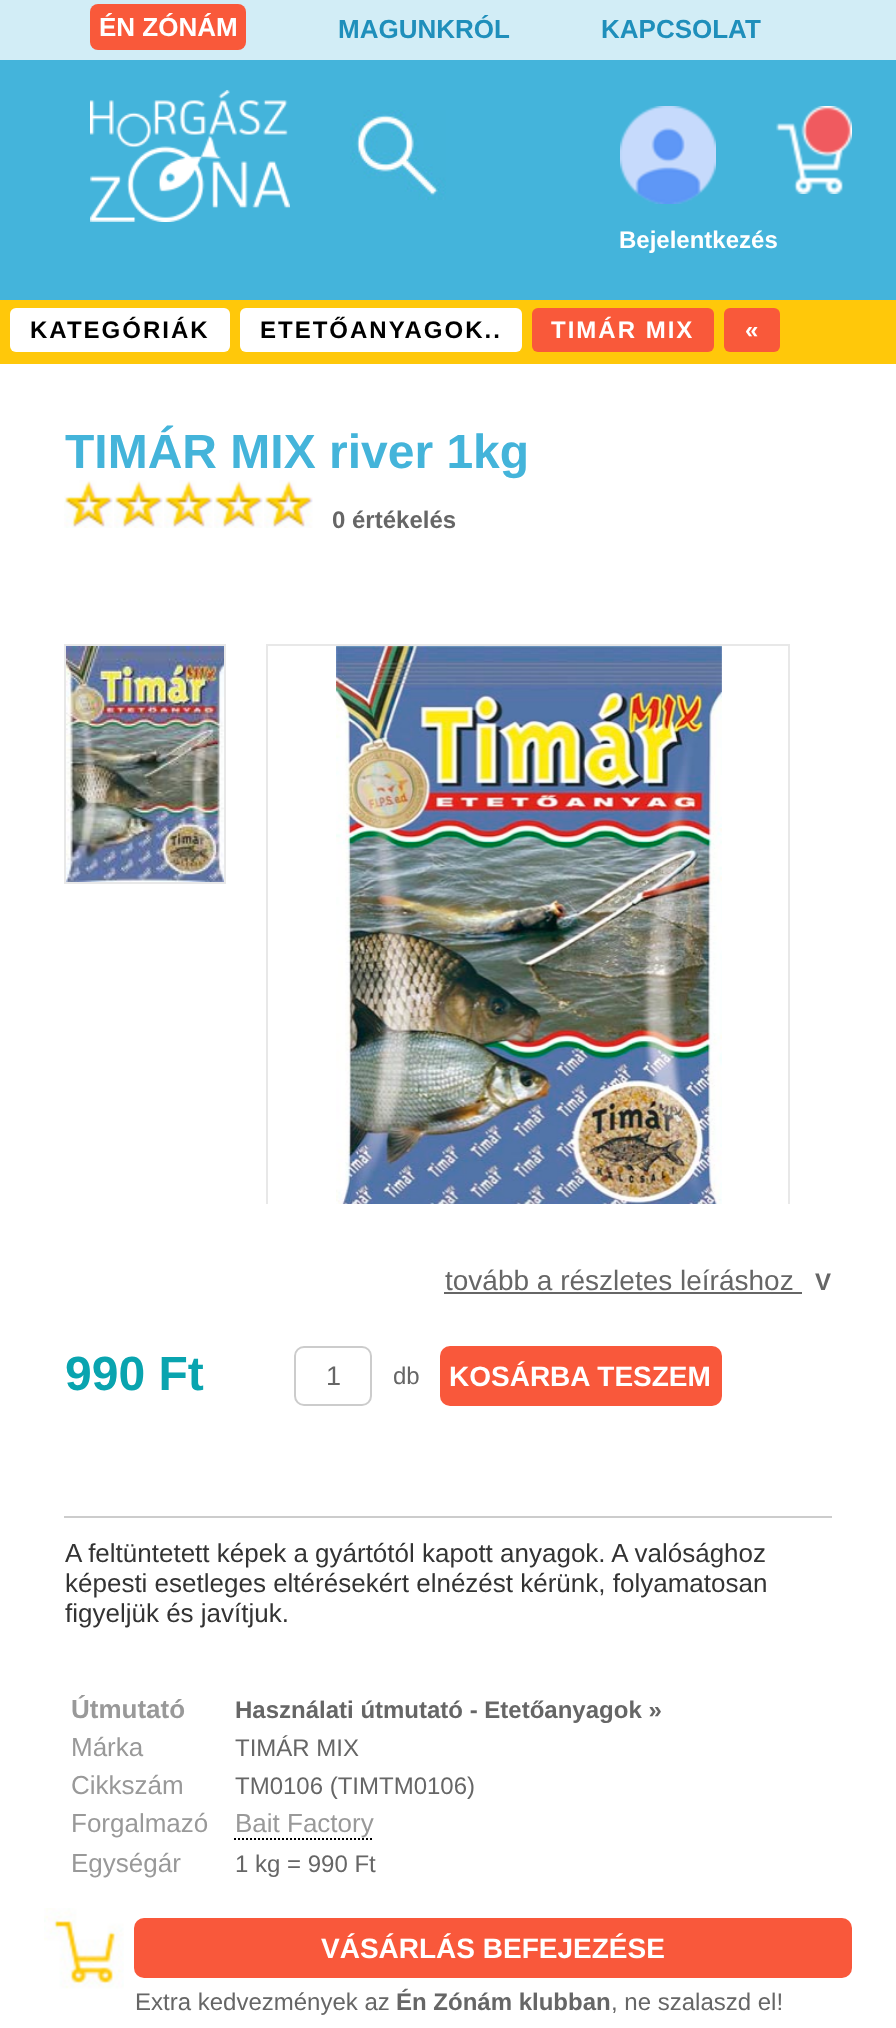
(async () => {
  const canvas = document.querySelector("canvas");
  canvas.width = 896;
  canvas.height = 2028;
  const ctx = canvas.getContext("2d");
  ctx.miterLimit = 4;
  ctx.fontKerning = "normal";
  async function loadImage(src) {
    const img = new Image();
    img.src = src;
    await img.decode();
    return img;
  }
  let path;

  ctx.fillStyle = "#ffffff";
  ctx.fillRect(0, 0, 896, 2028);
  ctx.fillStyle = "#d2edf6";
  ctx.fillRect(0, 0, 896, 60);
  ctx.fillStyle = "#f9593a";
  ctx.beginPath();
  ctx.roundRect(90, 4, 156, 46, 8);
  ctx.fill();
  ctx.fillStyle = "#44b4db";
  ctx.fillRect(0, 60, 896, 240);
  ctx.drawImage(await loadImage("img/1.png"), 90, 90, 200, 132);
  ctx.drawImage(await loadImage("img/2.png"), 350, 110, 96, 90);
  ctx.drawImage(await loadImage("img/3.png"), 776, 106, 76, 88);
  ctx.drawImage(await loadImage("img/4.png"), 620, 106, 96, 98);
  ctx.fillStyle = "#ffc80a";
  ctx.fillRect(0, 300, 896, 64);
  ctx.fillStyle = "#ffffff";
  ctx.beginPath();
  ctx.roundRect(10, 308, 220, 44, 6);
  ctx.fill();
  ctx.beginPath();
  ctx.roundRect(240, 308, 282, 44, 6);
  ctx.fill();
  ctx.fillStyle = "#f9593a";
  ctx.beginPath();
  ctx.roundRect(532, 308, 182, 44, 6);
  ctx.fill();
  ctx.beginPath();
  ctx.roundRect(724, 308, 56, 44, 6);
  ctx.fill();
  ctx.drawImage(await loadImage("img/5.png"), 64, 480, 49, 48);
  ctx.drawImage(await loadImage("img/5.png"), 114, 480, 49, 48);
  ctx.drawImage(await loadImage("img/5.png"), 164, 480, 49, 48);
  ctx.drawImage(await loadImage("img/5.png"), 214, 480, 49, 48);
  ctx.drawImage(await loadImage("img/5.png"), 264, 480, 49, 48);
  ctx.fillStyle = "#666666";
  ctx.fillRect(444, 1292, 358, 2);
  ctx.beginPath();
  ctx.roundRect(295, 1347, 76, 58, 9);
  ctx.strokeStyle = "#cccccc";
  ctx.lineWidth = 2;
  ctx.stroke();
  ctx.fillStyle = "#f9583b";
  ctx.beginPath();
  ctx.roundRect(440, 1346, 282, 60, 10);
  ctx.fill();
  ctx.fillStyle = "#cccccc";
  ctx.fillRect(64, 1516, 768, 2);
  path = new Path2D("M234 1839H374");
  ctx.strokeStyle = "#000000";
  ctx.setLineDash([2, 2]);
  ctx.stroke(path);
  ctx.strokeStyle = "#e8e8e8";
  ctx.setLineDash([]);
  ctx.strokeRect(65, 645, 160, 238);
  ctx.drawImage(await loadImage("img/6.png"), 66, 646, 158, 236);
  ctx.save();
  ctx.beginPath();
  ctx.rect(266, 644, 526, 560);
  ctx.clip();
  ctx.strokeRect(267, 645, 522, 578);
  ctx.restore();
  ctx.drawImage(await loadImage("img/7.png"), 336, 646, 386, 558);
  ctx.drawImage(await loadImage("img/8.png"), 44, 1908, 80, 81);
  ctx.fillStyle = "#f9583b";
  ctx.beginPath();
  ctx.roundRect(134, 1918, 718, 60, 10);
  ctx.fill();
  ctx.font = "bold 26px Liberation Sans";
  ctx.fillStyle = "#ffffff";
  ctx.fillText("ÉN ZÓNÁM", 99, 36);
  ctx.fillStyle = "#1f8fbb";
  ctx.fillText("MAGUNKRÓL", 338, 38);
  ctx.fillText("KAPCSOLAT", 601, 38);
  ctx.font = "bold 24px Liberation Sans";
  ctx.fillStyle = "#ffffff";
  ctx.fillText("Bejelentkezés", 619, 248);
  ctx.letterSpacing = "2px";
  ctx.fillStyle = "#000000";
  ctx.fillText("KATEGÓRIÁK", 30, 338);
  ctx.fillText("ETETŐANYAGOK..", 260, 338);
  ctx.fillStyle = "#ffffff";
  ctx.fillText("TIMÁR MIX", 551, 338);
  ctx.fillText("«", 745, 338);
  ctx.letterSpacing = "0px";
  ctx.font = "bold 48px Liberation Sans";
  ctx.fillStyle = "#44b4da";
  ctx.fillText("TIMÁR MIX river 1kg", 65, 468);
  ctx.font = "bold 24px Liberation Sans";
  ctx.fillStyle = "#666666";
  ctx.fillText("0 értékelés", 332, 528);
  ctx.font = "28px Liberation Sans";
  ctx.fillText("tovább a részletes leíráshoz", 445, 1290);
  ctx.font = "bold 24px Liberation Sans";
  ctx.fillText("V", 815, 1290);
  ctx.font = "bold 48px Liberation Sans";
  ctx.fillStyle = "#09a4af";
  ctx.fillText("990 Ft", 65, 1390);
  ctx.font = "27px Liberation Sans";
  ctx.fillStyle = "#666666";
  ctx.fillText("1", 326, 1385);
  ctx.font = "24px Liberation Sans";
  ctx.fillText("db", 393, 1384);
  ctx.font = "bold 28px Liberation Sans";
  ctx.fillStyle = "#ffffff";
  ctx.fillText("KOSÁRBA TESZEM", 449, 1386);
  ctx.font = "26px Liberation Sans";
  ctx.fillStyle = "#333333";
  for (const [text, x, y] of [
    ["A feltüntetett képek a gyártótól kapott anyagok. A valósághoz", 65, 1562],
    ["képesti esetleges eltérésekért elnézést kérünk, folyamatosan", 65, 1592],
    ["figyeljük és javítjuk.", 65, 1622],
  ]) {
    ctx.fillText(text, x, y);
  }
  ctx.font = "bold 26px Liberation Sans";
  ctx.fillStyle = "#999999";
  ctx.fillText("Útmutató", 71, 1718);
  ctx.font = "bold 24px Liberation Sans";
  ctx.fillStyle = "#666666";
  ctx.fillText("Használati útmutató - Etetőanyagok »", 235, 1718);
  ctx.font = "26px Liberation Sans";
  ctx.fillStyle = "#999999";
  ctx.fillText("Márka", 71, 1756);
  ctx.font = "24px Liberation Sans";
  ctx.fillStyle = "#666666";
  ctx.fillText("TIMÁR MIX", 235, 1756);
  ctx.font = "26px Liberation Sans";
  ctx.fillStyle = "#999999";
  ctx.fillText("Cikkszám", 71, 1794);
  ctx.font = "24px Liberation Sans";
  ctx.fillStyle = "#666666";
  ctx.fillText("TM0106 (TIMTM0106)", 235, 1794);
  ctx.font = "26px Liberation Sans";
  ctx.fillStyle = "#999999";
  for (const [text, x, y] of [
    ["Forgalmazó", 71, 1832],
    ["Bait Factory", 235, 1832],
    ["Egységár", 71, 1872],
  ]) {
    ctx.fillText(text, x, y);
  }
  ctx.font = "24px Liberation Sans";
  ctx.fillStyle = "#666666";
  ctx.fillText("1 kg = 990 Ft", 235, 1872);
  ctx.font = "bold 28px Liberation Sans";
  ctx.fillStyle = "#ffffff";
  ctx.fillText("VÁSÁRLÁS BEFEJEZÉSE", 321, 1958);
  ctx.font = "24px Liberation Sans";
  ctx.fillStyle = "#666666";
  ctx.fillText("Extra kedvezmények az", 135, 2010);
  ctx.font = "bold 24px Liberation Sans";
  ctx.fillText("Én Zónám klubban", 396, 2010);
  ctx.font = "24px Liberation Sans";
  ctx.fillText(", ne szalaszd el!", 611, 2010);
})();
